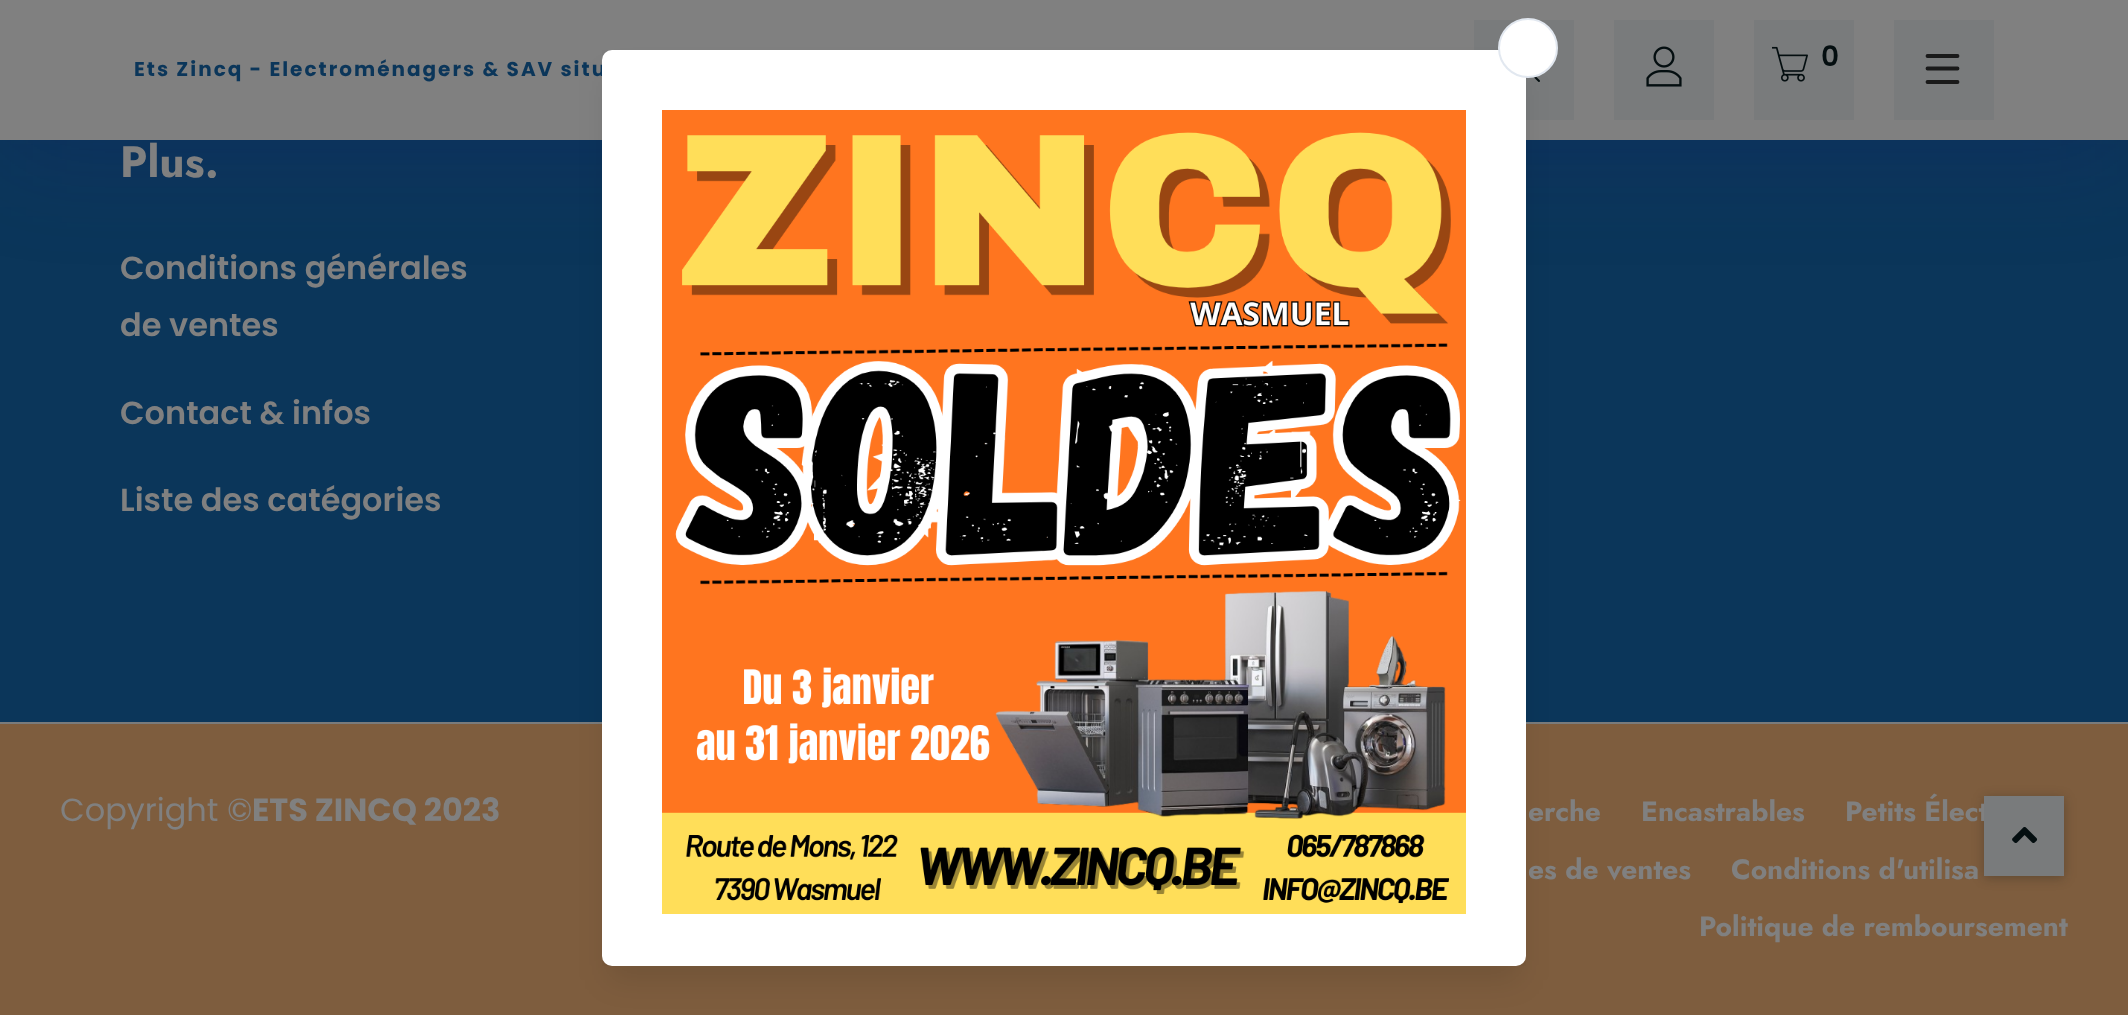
(async () => {
  const canvas = document.querySelector("canvas");
  canvas.width = 2128;
  canvas.height = 1015;
  const ctx = canvas.getContext("2d");
  ctx.miterLimit = 4;
  ctx.fontKerning = "normal";
  async function loadImage(src) {
    const img = new Image();
    img.src = src;
    await img.decode();
    return img;
  }
  let path;

  ctx.fillStyle = "#0b365a";
  ctx.fillRect(0, 0, 2128, 1015);
  ctx.fillStyle = "rgba(23, 28, 110, 0.2)";
  ctx.filter = "blur(50px)";
  ctx.beginPath();
  ctx.rect(0, 20, 2128, 140);
  ctx.fill();
  ctx.filter = "none";
  ctx.fillStyle = "#808080";
  ctx.fillRect(0, 0, 2128, 140);
  ctx.fillStyle = "#797b7c";
  ctx.fillRect(1474, 20, 100, 100);
  ctx.drawImage(await loadImage("img/2.png"), 1533, 76, 7, 6);
  ctx.fillStyle = "#7e5d3e";
  ctx.fillRect(0, 724, 2128, 291);
  ctx.fillStyle = "#797b7c";
  ctx.fillRect(0, 722, 2128, 2);
  ctx.fillStyle = "rgba(0, 0, 0, 0.1)";
  ctx.filter = "blur(15px)";
  ctx.beginPath();
  ctx.roundRect(608, 76, 912, 904, 4);
  ctx.fill();
  ctx.filter = "none";
  ctx.save();
  ctx.beginPath();
  ctx.rect(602, 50, 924, 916);
  ctx.clip();
  ctx.fillStyle = "rgba(0, 0, 0, 0.12)";
  ctx.filter = "blur(20px)";
  ctx.beginPath();
  ctx.roundRect(608, 56, 912, 904, 4);
  ctx.fill();
  ctx.filter = "none";
  ctx.restore();
  ctx.fillStyle = "#797b7c";
  ctx.fillRect(1614, 20, 100, 100);
  ctx.drawImage(await loadImage("img/3.png"), 1646, 46, 36, 41);
  ctx.fillRect(1754, 20, 100, 100);
  ctx.drawImage(await loadImage("img/4.png"), 1772, 46, 36, 36);
  ctx.fillRect(1894, 20, 100, 100);
  path = new Path2D("M1927.5 56H1957.5M1927.5 68.5H1957.5M1927.5 82H1957.5");
  ctx.strokeStyle = "#1a1a1a";
  ctx.lineWidth = 3.8;
  ctx.lineCap = "round";
  ctx.stroke(path);
  ctx.fillStyle = "rgba(16, 17, 18, 0.28)";
  ctx.filter = "blur(6px)";
  ctx.beginPath();
  ctx.rect(1984, 798, 80, 80);
  ctx.fill();
  ctx.filter = "none";
  ctx.font = "600 28px Poppins";
  ctx.fillStyle = "#040e10";
  ctx.fillText("0", 1821, 66);
  ctx.letterSpacing = "2px";
  ctx.font = "bold 20px Poppins";
  ctx.fillStyle = "#0b365a";
  ctx.fillText("Ets Zincq - Electroménagers & SAV situ", 134, 76);
  ctx.fillStyle = "#ffffff";
  ctx.beginPath();
  ctx.roundRect(602, 50, 924, 916, 10);
  ctx.fill();
  ctx.beginPath();
  ctx.arc(1528, 48, 29, 0, Math.PI * 2);
  ctx.fill();
  ctx.strokeStyle = "#e2e8f0";
  ctx.lineWidth = 2;
  ctx.stroke();
  ctx.drawImage(await loadImage("img/1.png"), 662, 110, 804, 804);
  ctx.letterSpacing = "0px";
  ctx.font = "bold 44px Jost";
  ctx.fillStyle = "#808080";
  ctx.fillText("Plus.", 120, 177);
  ctx.font = "600 32px Poppins";
  for (const [text, x, y] of [
    ["Conditions générales", 120, 279],
    ["de ventes", 120, 336],
    ["Contact & infos", 120, 424],
    ["Liste des catégories", 120, 511],
  ]) {
    ctx.fillText(text, x, y);
  }
  ctx.font = "32px Poppins";
  ctx.fillText("Copyright ©", 60, 821);
  ctx.font = "bold 32px Poppins";
  ctx.fillText("ETS ZINCQ 2023", 252, 821);
  ctx.font = "bold 28px Jost";
  for (const [text, x, y] of [
    ["erche", 1528, 821],
    ["Encastrables", 1641, 821],
    ["Petits Élect", 1845, 821],
    ["es de ventes", 1528, 879],
    ["Conditions d'utilisa", 1731, 879],
    ["Politique de remboursement", 1699, 936],
  ]) {
    ctx.fillText(text, x, y);
  }
  ctx.fillStyle = "#797b7c";
  ctx.fillRect(1984, 796, 80, 80);
  ctx.drawImage(await loadImage("img/5.png"), 2012, 827, 26, 16);
})();
